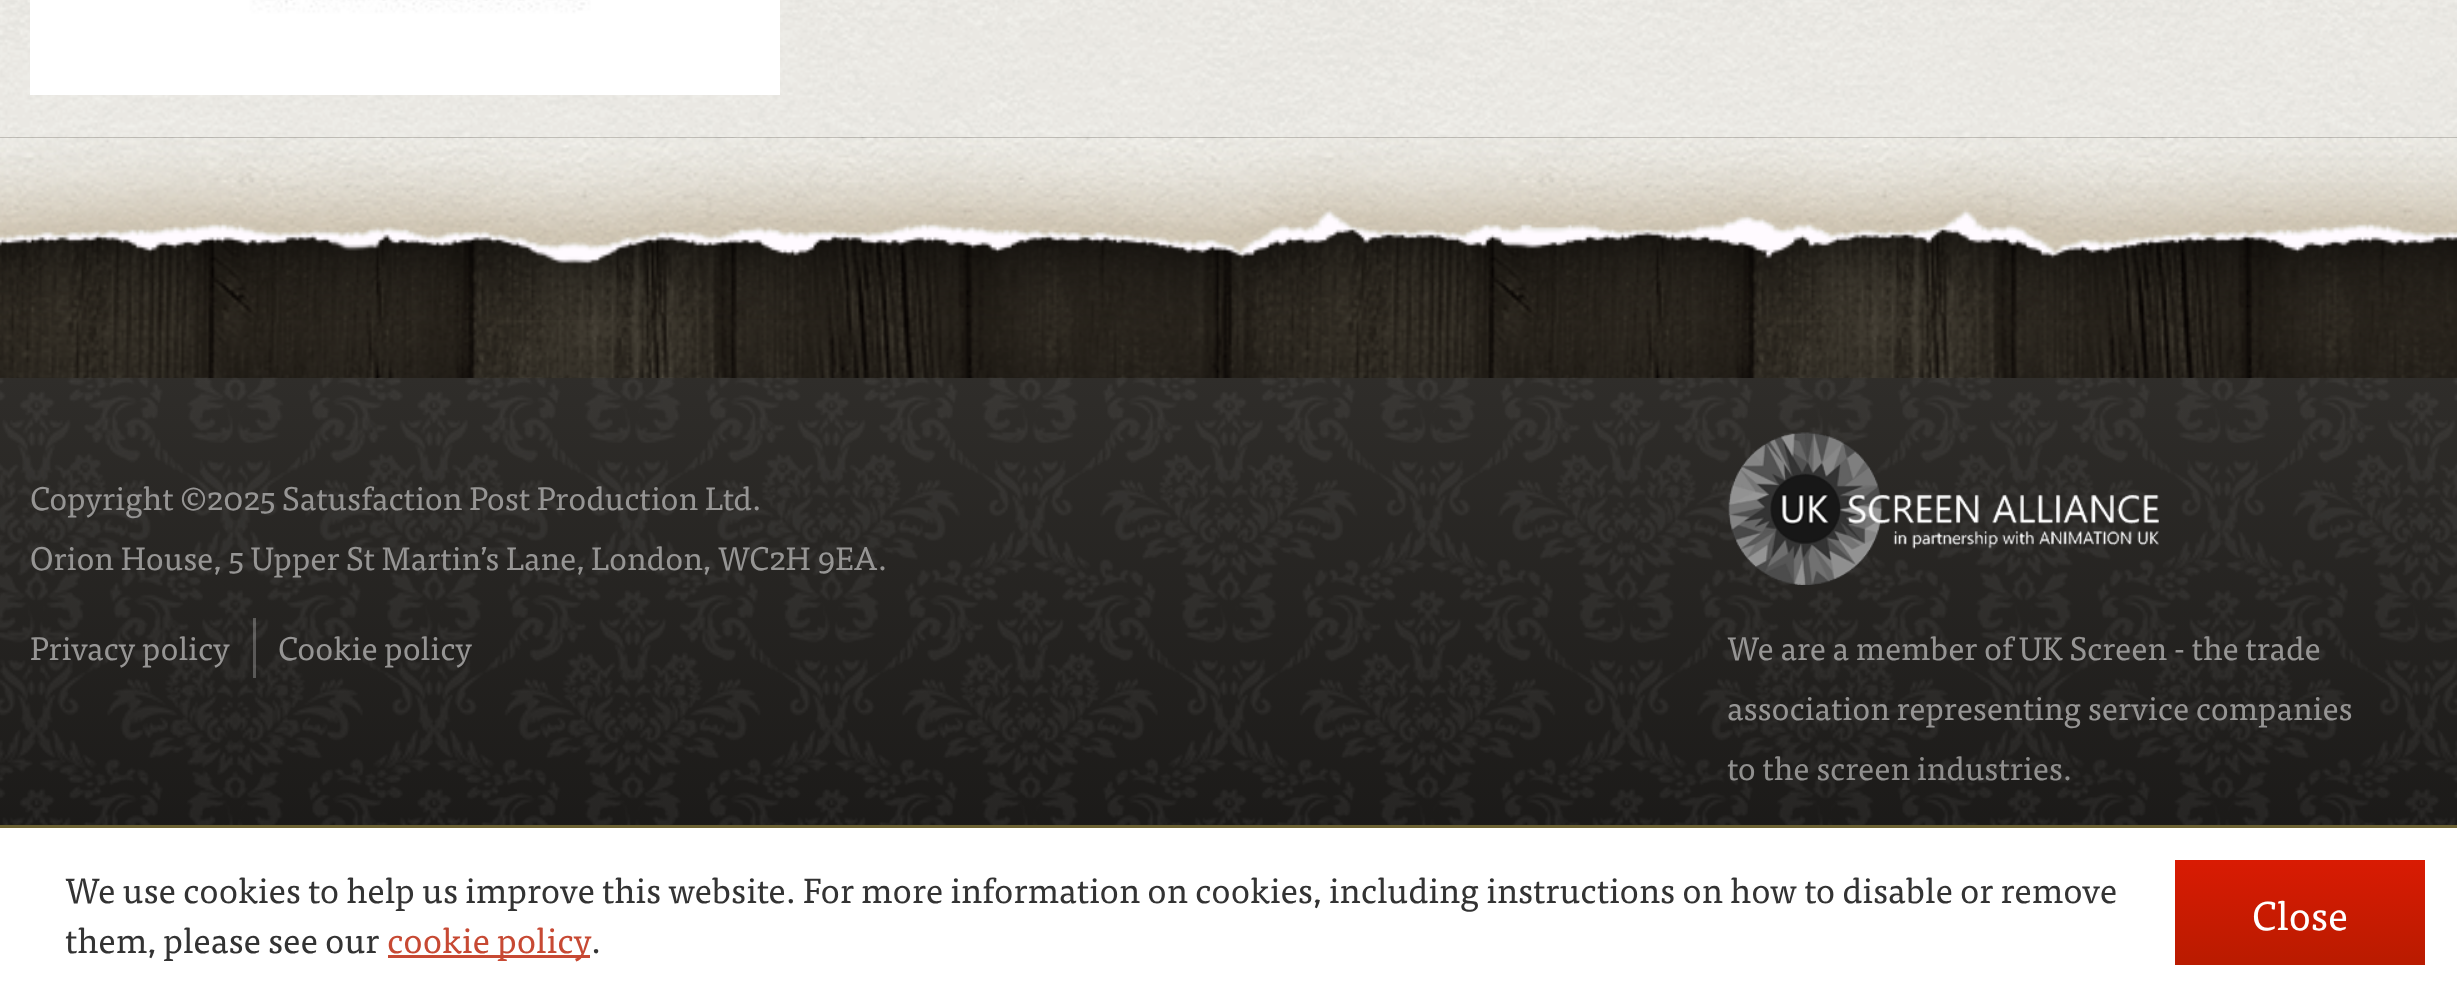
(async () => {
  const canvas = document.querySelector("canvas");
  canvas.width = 2457;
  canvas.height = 997;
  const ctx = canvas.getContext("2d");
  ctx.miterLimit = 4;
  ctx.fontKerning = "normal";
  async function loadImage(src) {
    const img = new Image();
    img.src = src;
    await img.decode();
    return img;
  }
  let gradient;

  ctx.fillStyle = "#ffffff";
  ctx.fillRect(0, 0, 2457, 997);
  ctx.drawImage(await loadImage("img/1.png"), 0, 137, 2457, 241);
  ctx.drawImage(await loadImage("img/2.png"), 0, 0, 2457, 138);
  ctx.drawImage(await loadImage("img/3.png"), 30, 0, 750, 95);
  ctx.drawImage(await loadImage("img/4.png"), 0, 137, 2457, 183);
  gradient = ctx.createLinearGradient(1229, 377, 1229, 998);
  gradient.addColorStop(0, "#2f2d2a");
  gradient.addColorStop(1, "#141312");
  ctx.fillStyle = gradient;
  ctx.fillRect(0, 378, 2457, 447);
  ctx.drawImage(await loadImage("img/5.png"), 0, 377, 2457, 448);
  ctx.fillStyle = "rgba(255, 255, 255, 0.25)";
  ctx.fillRect(253, 618, 3, 60);
  ctx.drawImage(await loadImage("img/6.png"), 1728, 432, 431, 153);
  ctx.fillStyle = "#6c6233";
  ctx.fillRect(0, 825, 2457, 3);
  ctx.fillStyle = "#c74933";
  ctx.fillRect(388, 955, 202, 3);
  gradient = ctx.createLinearGradient(2300, 860, 2300, 965);
  gradient.addColorStop(0, "#d91b03");
  gradient.addColorStop(1, "#b91b00");
  ctx.fillStyle = gradient;
  ctx.fillRect(2175, 860, 250, 105);
  ctx.font = "32.5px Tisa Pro";
  ctx.fillStyle = "#969594";
  for (const [text, x, y] of [
    ["Copyright ©2025 Satusfaction Post Production Ltd.", 30, 510],
    ["Orion House, 5 Upper St Martin’s Lane, London, WC2H 9EA.", 30, 570],
    ["Privacy policy", 30, 660],
    ["Cookie policy", 278, 660],
    ["We are a member of", 1727, 660],
    ["UK Screen", 2019, 660],
    ["- the trade", 2174, 660],
    ["association representing service companies", 1727, 720],
  ]) {
    ctx.fillText(text, x, y);
  }
  ctx.fillStyle = "#908f8e";
  ctx.fillText("to the screen industries.", 1727, 780);
  ctx.font = "35px Tisa Pro";
  ctx.fillStyle = "#333333";
  ctx.fillText("We use cookies to help us improve this website. For more information on cookies, including instructions on how to disable or remove", 65, 903);
  ctx.fillText("them, please see our", 65, 953);
  ctx.fillStyle = "#c74933";
  ctx.fillText("cookie policy", 387, 953);
  ctx.fillStyle = "#333333";
  ctx.fillText(".", 591, 953);
  ctx.font = "40px Tisa Pro";
  ctx.fillStyle = "#ffffff";
  ctx.fillText("Close", 2252, 930);
})();
